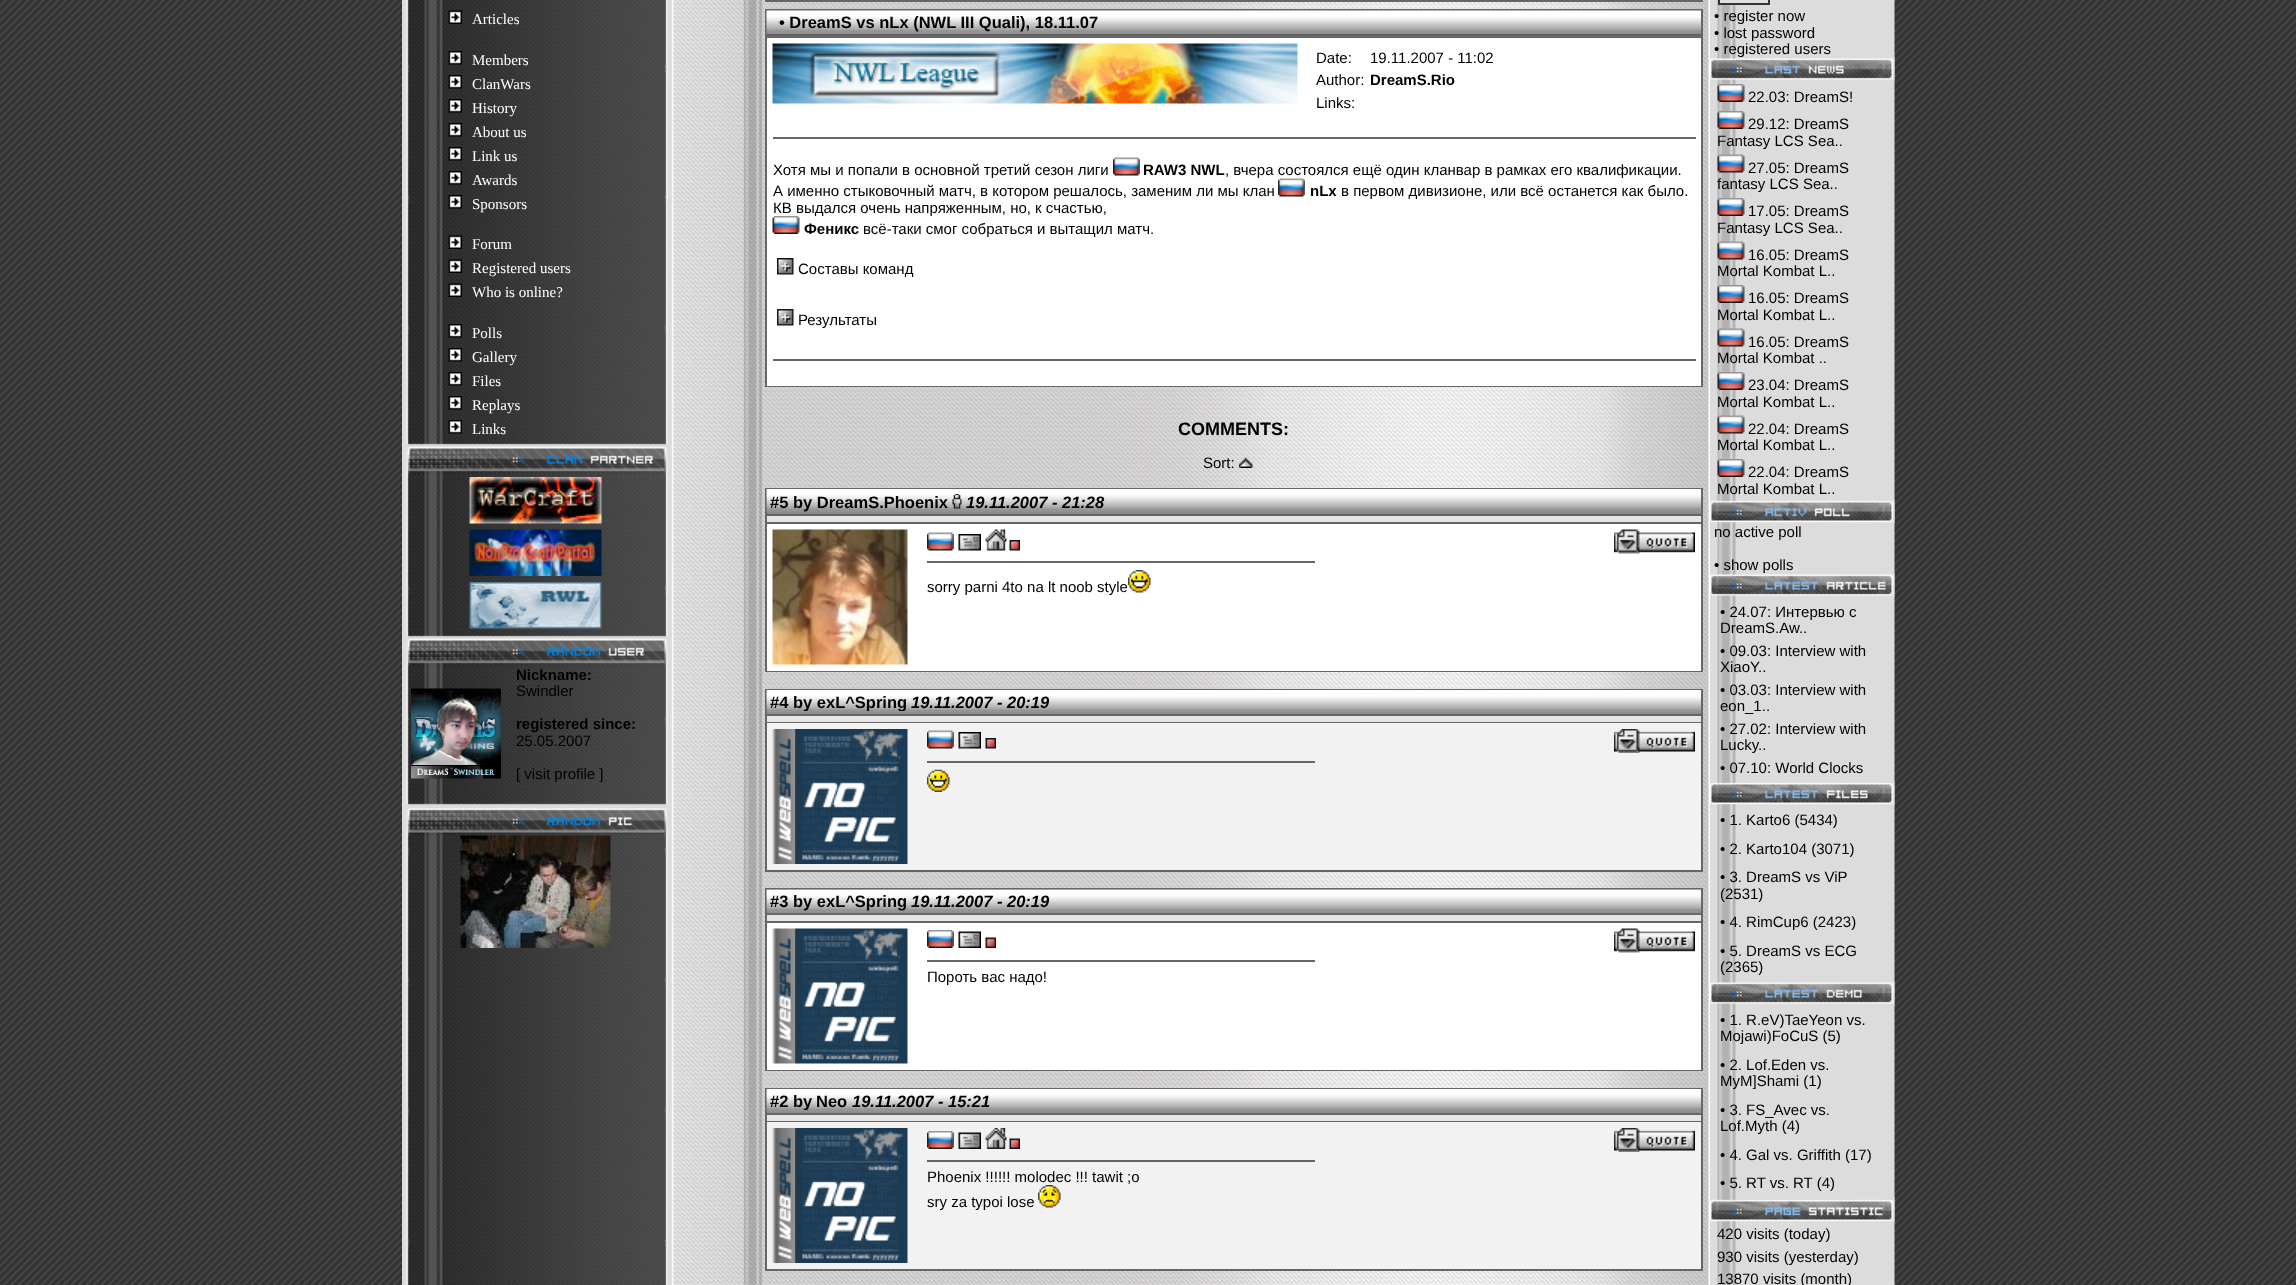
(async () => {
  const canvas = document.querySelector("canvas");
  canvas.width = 2296;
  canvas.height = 1285;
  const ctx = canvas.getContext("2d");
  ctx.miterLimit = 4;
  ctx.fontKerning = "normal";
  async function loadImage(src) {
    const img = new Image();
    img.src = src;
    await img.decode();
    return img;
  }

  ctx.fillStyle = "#ffffff";
  ctx.fillRect(0, 0, 2296, 1285);
  ctx.drawImage(await loadImage("img/1.png"), 0, 0, 2296, 1285);
  ctx.drawImage(await loadImage("img/2.png"), 402, 0, 267, 1285);
  ctx.drawImage(await loadImage("img/3.png"), 448, 10, 14, 14);
  ctx.drawImage(await loadImage("img/4.png"), 448, 51, 14, 14);
  ctx.drawImage(await loadImage("img/5.png"), 448, 75, 14, 14);
  ctx.drawImage(await loadImage("img/6.png"), 448, 99, 14, 14);
  ctx.drawImage(await loadImage("img/7.png"), 448, 123, 14, 14);
  ctx.drawImage(await loadImage("img/5.png"), 448, 147, 14, 14);
  ctx.drawImage(await loadImage("img/8.png"), 448, 171, 14, 14);
  ctx.drawImage(await loadImage("img/9.png"), 448, 195, 14, 14);
  ctx.drawImage(await loadImage("img/3.png"), 448, 235, 14, 14);
  ctx.drawImage(await loadImage("img/10.png"), 448, 259, 14, 14);
  ctx.drawImage(await loadImage("img/11.png"), 448, 283, 14, 14);
  ctx.drawImage(await loadImage("img/12.png"), 448, 324, 14, 14);
  ctx.drawImage(await loadImage("img/7.png"), 448, 348, 14, 14);
  ctx.drawImage(await loadImage("img/5.png"), 448, 372, 14, 14);
  ctx.drawImage(await loadImage("img/12.png"), 448, 396, 14, 14);
  ctx.drawImage(await loadImage("img/7.png"), 448, 420, 14, 14);
  ctx.drawImage(await loadImage("img/13.png"), 406, 439, 262, 35);
  ctx.drawImage(await loadImage("img/14.png"), 469, 477, 133, 47);
  ctx.drawImage(await loadImage("img/15.png"), 469, 529, 133, 47);
  ctx.drawImage(await loadImage("img/16.png"), 469, 582, 133, 47);
  ctx.drawImage(await loadImage("img/17.png"), 406, 631, 262, 35);
  ctx.drawImage(await loadImage("img/18.png"), 411, 688, 90, 91);
  ctx.drawImage(await loadImage("img/19.png"), 406, 801, 262, 35);
  ctx.drawImage(await loadImage("img/20.png"), 460, 835, 151, 113);
  ctx.drawImage(await loadImage("img/21.png"), 669, 0, 1041, 1285);
  for (const [x, y, w, h, color] of [
    [765, 0, 938, 2, "#666666"],
    [765, 9, 938, 378, "#666666"],
    [767, 34, 934, 1, "#333333"],
  ]) {
    ctx.fillStyle = color;
    ctx.fillRect(x, y, w, h);
  }
  ctx.drawImage(await loadImage("img/22.png"), 766, 10, 935, 25);
  ctx.fillStyle = "#ffffff";
  ctx.fillRect(767, 38, 934, 348);
  ctx.drawImage(await loadImage("img/23.png"), 772, 43, 526, 61);
  ctx.fillStyle = "#666666";
  ctx.fillRect(773, 137, 923, 2);
  ctx.drawImage(await loadImage("img/24.png"), 1113, 157, 27, 19);
  ctx.drawImage(await loadImage("img/27.png"), 777, 258, 17, 17);
  ctx.drawImage(await loadImage("img/27.png"), 777, 309, 17, 17);
  ctx.fillRect(773, 359, 923, 2);
  ctx.drawImage(await loadImage("img/28.png"), 1239, 457, 14, 11);
  ctx.fillRect(765, 488, 938, 184);
  ctx.drawImage(await loadImage("img/29.png"), 766, 489, 935, 26);
  ctx.drawImage(await loadImage("img/30.png"), 952, 494, 10, 15);
  ctx.fillStyle = "#e6e6e6";
  ctx.fillRect(767, 516, 934, 6);
  ctx.fillStyle = "#ffffff";
  ctx.fillRect(767, 524, 934, 147);
  ctx.drawImage(await loadImage("img/31.png"), 772, 529, 136, 136);
  ctx.drawImage(await loadImage("img/25.png"), 927, 532, 27, 19);
  ctx.drawImage(await loadImage("img/32.png"), 958, 534, 23, 17);
  ctx.drawImage(await loadImage("img/33.png"), 985, 529, 22, 22);
  ctx.drawImage(await loadImage("img/34.png"), 1009, 540, 11, 11);
  ctx.drawImage(await loadImage("img/35.png"), 1614, 529, 81, 25);
  ctx.fillStyle = "#666666";
  ctx.fillRect(927, 561, 388, 2);
  ctx.drawImage(await loadImage("img/36.png"), 1128, 570, 23, 23);
  ctx.fillRect(765, 689, 938, 183);
  ctx.drawImage(await loadImage("img/37.png"), 766, 690, 935, 24);
  ctx.fillStyle = "#e6e6e6";
  ctx.fillRect(767, 716, 934, 6);
  ctx.fillStyle = "#f2f2f2";
  ctx.fillRect(767, 723, 934, 147);
  ctx.drawImage(await loadImage("img/38.png"), 772, 729, 136, 135);
  ctx.drawImage(await loadImage("img/39.png"), 927, 730, 27, 19);
  ctx.drawImage(await loadImage("img/40.png"), 958, 732, 23, 17);
  ctx.drawImage(await loadImage("img/41.png"), 985, 738, 11, 11);
  ctx.drawImage(await loadImage("img/42.png"), 1614, 729, 81, 24);
  ctx.fillStyle = "#666666";
  ctx.fillRect(927, 761, 388, 2);
  ctx.drawImage(await loadImage("img/43.png"), 927, 769, 23, 23);
  ctx.fillRect(765, 888, 938, 183);
  ctx.drawImage(await loadImage("img/44.png"), 766, 889, 935, 25);
  ctx.fillStyle = "#e6e6e6";
  ctx.fillRect(767, 915, 934, 6);
  ctx.fillStyle = "#ffffff";
  ctx.fillRect(767, 923, 934, 147);
  ctx.drawImage(await loadImage("img/45.png"), 772, 928, 136, 136);
  ctx.drawImage(await loadImage("img/46.png"), 927, 930, 27, 18);
  ctx.drawImage(await loadImage("img/47.png"), 958, 931, 23, 17);
  ctx.drawImage(await loadImage("img/48.png"), 985, 937, 11, 11);
  ctx.drawImage(await loadImage("img/35.png"), 1614, 928, 81, 25);
  ctx.fillStyle = "#666666";
  ctx.fillRect(927, 960, 388, 2);
  ctx.fillRect(765, 1088, 938, 183);
  ctx.drawImage(await loadImage("img/37.png"), 766, 1089, 935, 24);
  ctx.fillStyle = "#e6e6e6";
  ctx.fillRect(767, 1115, 934, 6);
  ctx.fillStyle = "#f2f2f2";
  ctx.fillRect(767, 1122, 934, 147);
  ctx.drawImage(await loadImage("img/38.png"), 772, 1128, 136, 135);
  ctx.drawImage(await loadImage("img/49.png"), 927, 1131, 27, 18);
  ctx.drawImage(await loadImage("img/50.png"), 958, 1132, 23, 17);
  ctx.drawImage(await loadImage("img/51.png"), 985, 1128, 22, 21);
  ctx.drawImage(await loadImage("img/52.png"), 1009, 1138, 11, 11);
  ctx.drawImage(await loadImage("img/42.png"), 1614, 1128, 81, 24);
  ctx.fillStyle = "#666666";
  ctx.fillRect(927, 1160, 388, 2);
  ctx.drawImage(await loadImage("img/53.png"), 1038, 1185, 23, 23);
  ctx.drawImage(await loadImage("img/54.png"), 1710, 0, 185, 1285);
  ctx.fillStyle = "#e0e0e0";
  ctx.beginPath();
  ctx.rect(1719, -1, 50, 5);
  ctx.fill();
  ctx.strokeStyle = "#333333";
  ctx.lineWidth = 2;
  ctx.stroke();
  ctx.drawImage(await loadImage("img/56.png"), 1717, 84, 28, 18);
  ctx.drawImage(await loadImage("img/56.png"), 1717, 111, 28, 18);
  ctx.drawImage(await loadImage("img/57.png"), 1717, 154, 28, 19);
  ctx.drawImage(await loadImage("img/56.png"), 1717, 198, 28, 18);
  ctx.drawImage(await loadImage("img/57.png"), 1717, 241, 28, 19);
  ctx.drawImage(await loadImage("img/56.png"), 1717, 285, 28, 18);
  ctx.drawImage(await loadImage("img/57.png"), 1717, 328, 28, 19);
  ctx.drawImage(await loadImage("img/56.png"), 1717, 372, 28, 18);
  ctx.drawImage(await loadImage("img/57.png"), 1717, 415, 28, 19);
  ctx.drawImage(await loadImage("img/56.png"), 1717, 459, 28, 18);
  ctx.drawImage(await loadImage("img/58.png"), 1710, 499, 185, 25);
  ctx.drawImage(await loadImage("img/60.png"), 1710, 781, 185, 25);
  ctx.drawImage(await loadImage("img/61.png"), 1710, 981, 185, 24);
  ctx.drawImage(await loadImage("img/62.png"), 1710, 1197, 185, 26);
  ctx.font = "15px Liberation Serif";
  ctx.fillStyle = "#ffffff";
  for (const [text, x, y] of [
    ["Articles", 472, 24],
    ["Members", 472, 65],
    ["ClanWars", 472, 89],
    ["History", 472, 113],
    ["About us", 472, 137],
    ["Link us", 472, 161],
    ["Awards", 472, 185],
    ["Sponsors", 472, 209],
    ["Forum", 472, 249],
    ["Registered users", 472, 273],
    ["Who is online?", 472, 297],
    ["Polls", 472, 338],
    ["Gallery", 472, 362],
    ["Files", 472, 386],
    ["Replays", 472, 410],
    ["Links", 472, 434],
  ]) {
    ctx.fillText(text, x, y);
  }
  ctx.font = "bold 15px Liberation Sans";
  ctx.fillStyle = "#000000";
  ctx.fillText("Nickname:", 516, 680);
  ctx.font = "15px Liberation Sans";
  ctx.fillText("Swindler", 516, 696);
  ctx.font = "bold 15px Liberation Sans";
  ctx.fillText("registered since:", 516, 729);
  ctx.font = "15px Liberation Sans";
  ctx.fillText("25.05.2007", 516, 746);
  ctx.fillText("[ visit profile ]", 516, 779);
  ctx.font = "bold 16.5px Liberation Sans";
  ctx.fillText("• DreamS vs nLx (NWL III Quali), 18.11.07", 779, 28);
  ctx.font = "15px Liberation Sans";
  for (const [text, x, y] of [
    ["Date:", 1316, 63],
    ["19.11.2007 - 11:02", 1370, 63],
    ["Author:", 1316, 85],
  ]) {
    ctx.fillText(text, x, y);
  }
  ctx.font = "bold 15px Liberation Sans";
  ctx.fillText("DreamS.Rio", 1370, 85);
  ctx.font = "15px Liberation Sans";
  ctx.fillText("Links:", 1316, 108);
  ctx.fillText("Хотя мы и попали в основной третий сезон лиги", 773, 175);
  ctx.font = "bold 15px Liberation Sans";
  ctx.fillText("RAW3 NWL", 1143, 175);
  ctx.font = "15px Liberation Sans";
  ctx.fillText(", вчера состоялся ещё один кланвар в рамках его квалификации.", 1225, 175);
  ctx.fillText("А именно стыковочный матч, в котором решалось, заменим ли мы клан", 773, 196);
  ctx.drawImage(await loadImage("img/25.png"), 1278, 178, 27, 19);
  ctx.font = "bold 15px Liberation Sans";
  ctx.fillText("nLx", 1310, 196);
  ctx.font = "15px Liberation Sans";
  ctx.fillText("в первом дивизионе, или всё останется как было.", 1341, 196);
  ctx.fillText("КВ выдался очень напряженным, но, к счастью,", 773, 213);
  ctx.drawImage(await loadImage("img/26.png"), 772, 216, 28, 18);
  ctx.font = "bold 15px Liberation Sans";
  ctx.fillText("Феникс", 804, 234);
  ctx.font = "15px Liberation Sans";
  for (const [text, x, y] of [
    ["всё-таки смог собраться и вытащил матч.", 863, 234],
    ["Составы команд", 798, 274],
    ["Результаты", 798, 325],
  ]) {
    ctx.fillText(text, x, y);
  }
  ctx.font = "bold 18px Liberation Sans";
  ctx.fillText("COMMENTS:", 1178, 435);
  ctx.font = "15px Liberation Sans";
  ctx.fillText("Sort:", 1203, 468);
  ctx.font = "bold 16.5px Liberation Sans";
  ctx.fillText("#5 by DreamS.Phoenix", 770, 508);
  ctx.font = "italic bold 16.5px Liberation Sans";
  ctx.fillText("19.11.2007 - 21:28", 966, 508);
  ctx.font = "15px Liberation Sans";
  ctx.fillText("sorry parni 4to na lt noob style", 927, 592);
  ctx.save();
  ctx.beginPath();
  ctx.rect(770, 693, 928, 18);
  ctx.clip();
  ctx.font = "bold 16.5px Liberation Sans";
  ctx.fillText("#4 by exL^Spring", 770, 708);
  ctx.restore();
  ctx.font = "italic bold 16.5px Liberation Sans";
  ctx.fillText("19.11.2007 - 20:19", 911, 708);
  ctx.font = "bold 16.5px Liberation Sans";
  ctx.fillText("#3 by exL^Spring", 770, 907);
  ctx.font = "italic bold 16.5px Liberation Sans";
  ctx.fillText("19.11.2007 - 20:19", 911, 907);
  ctx.font = "15px Liberation Sans";
  ctx.fillText("Пороть вас надо!", 927, 982);
  ctx.save();
  ctx.beginPath();
  ctx.rect(770, 1092, 928, 18);
  ctx.clip();
  ctx.font = "bold 16.5px Liberation Sans";
  ctx.fillText("#2 by", 770, 1107);
  ctx.restore();
  ctx.font = "bold 16.5px Liberation Sans";
  ctx.fillText("Neo", 816, 1107);
  ctx.font = "italic bold 16.5px Liberation Sans";
  ctx.fillText("19.11.2007 - 15:21", 852, 1107);
  ctx.font = "15px Liberation Sans";
  for (const [text, x, y] of [
    ["Phoenix !!!!!! molodec !!! tawit ;o", 927, 1182],
    ["sry za typoi lose", 927, 1207],
    ["• register now", 1714, 21],
    ["• lost password", 1714, 38],
    ["• registered users", 1714, 54],
  ]) {
    ctx.fillText(text, x, y);
  }
  ctx.drawImage(await loadImage("img/55.png"), 1710, 57, 185, 24);
  for (const [text, x, y] of [
    ["22.03: DreamS!", 1748, 102],
    ["29.12: DreamS", 1748, 129],
    ["Fantasy LCS Sea..", 1717, 146],
    ["27.05: DreamS", 1748, 173],
    ["fantasy LCS Sea..", 1717, 189],
    ["17.05: DreamS", 1748, 216],
    ["Fantasy LCS Sea..", 1717, 233],
    ["16.05: DreamS", 1748, 260],
    ["Mortal Kombat L..", 1717, 276],
    ["16.05: DreamS", 1748, 303],
    ["Mortal Kombat L..", 1717, 320],
    ["16.05: DreamS", 1748, 347],
    ["Mortal Kombat ..", 1717, 363],
    ["23.04: DreamS", 1748, 390],
    ["Mortal Kombat L..", 1717, 407],
    ["22.04: DreamS", 1748, 434],
    ["Mortal Kombat L..", 1717, 450],
    ["22.04: DreamS", 1748, 477],
    ["Mortal Kombat L..", 1717, 494],
    ["no active poll", 1714, 537],
    ["• show polls", 1714, 570],
  ]) {
    ctx.fillText(text, x, y);
  }
  ctx.drawImage(await loadImage("img/59.png"), 1710, 573, 185, 24);
  for (const [text, x, y] of [
    ["• 24.07: Интервью с", 1720, 617],
    ["DreamS.Aw..", 1720, 633],
    ["• 09.03: Interview with", 1720, 656],
    ["XiaoY..", 1720, 672],
    ["• 03.03: Interview with", 1720, 695],
    ["eon_1..", 1720, 711],
    ["• 27.02: Interview with", 1720, 734],
    ["Lucky..", 1720, 750],
    ["• 07.10: World Clocks", 1720, 773],
    ["• 1. Karto6 (5434)", 1720, 825],
    ["• 2. Karto104 (3071)", 1720, 854],
    ["• 3. DreamS vs ViP", 1720, 882],
    ["(2531)", 1720, 899],
    ["• 4. RimCup6 (2423)", 1720, 927],
    ["• 5. DreamS vs ECG", 1720, 956],
    ["(2365)", 1720, 972],
    ["• 1. R.eV)TaeYeon vs.", 1720, 1025],
    ["Mojawi)FoCuS (5)", 1720, 1041],
    ["• 2. Lof.Eden vs.", 1720, 1070],
    ["MyM]Shami (1)", 1720, 1086],
    ["• 3. FS_Avec vs.", 1720, 1115],
    ["Lof.Myth (4)", 1720, 1131],
    ["• 4. Gal vs. Griffith (17)", 1720, 1160],
    ["• 5. RT vs. RT (4)", 1720, 1188],
    ["420 visits (today)", 1717, 1239],
    ["930 visits (yesterday)", 1717, 1262],
    ["13870 visits (month)", 1717, 1284],
  ]) {
    ctx.fillText(text, x, y);
  }
})();
